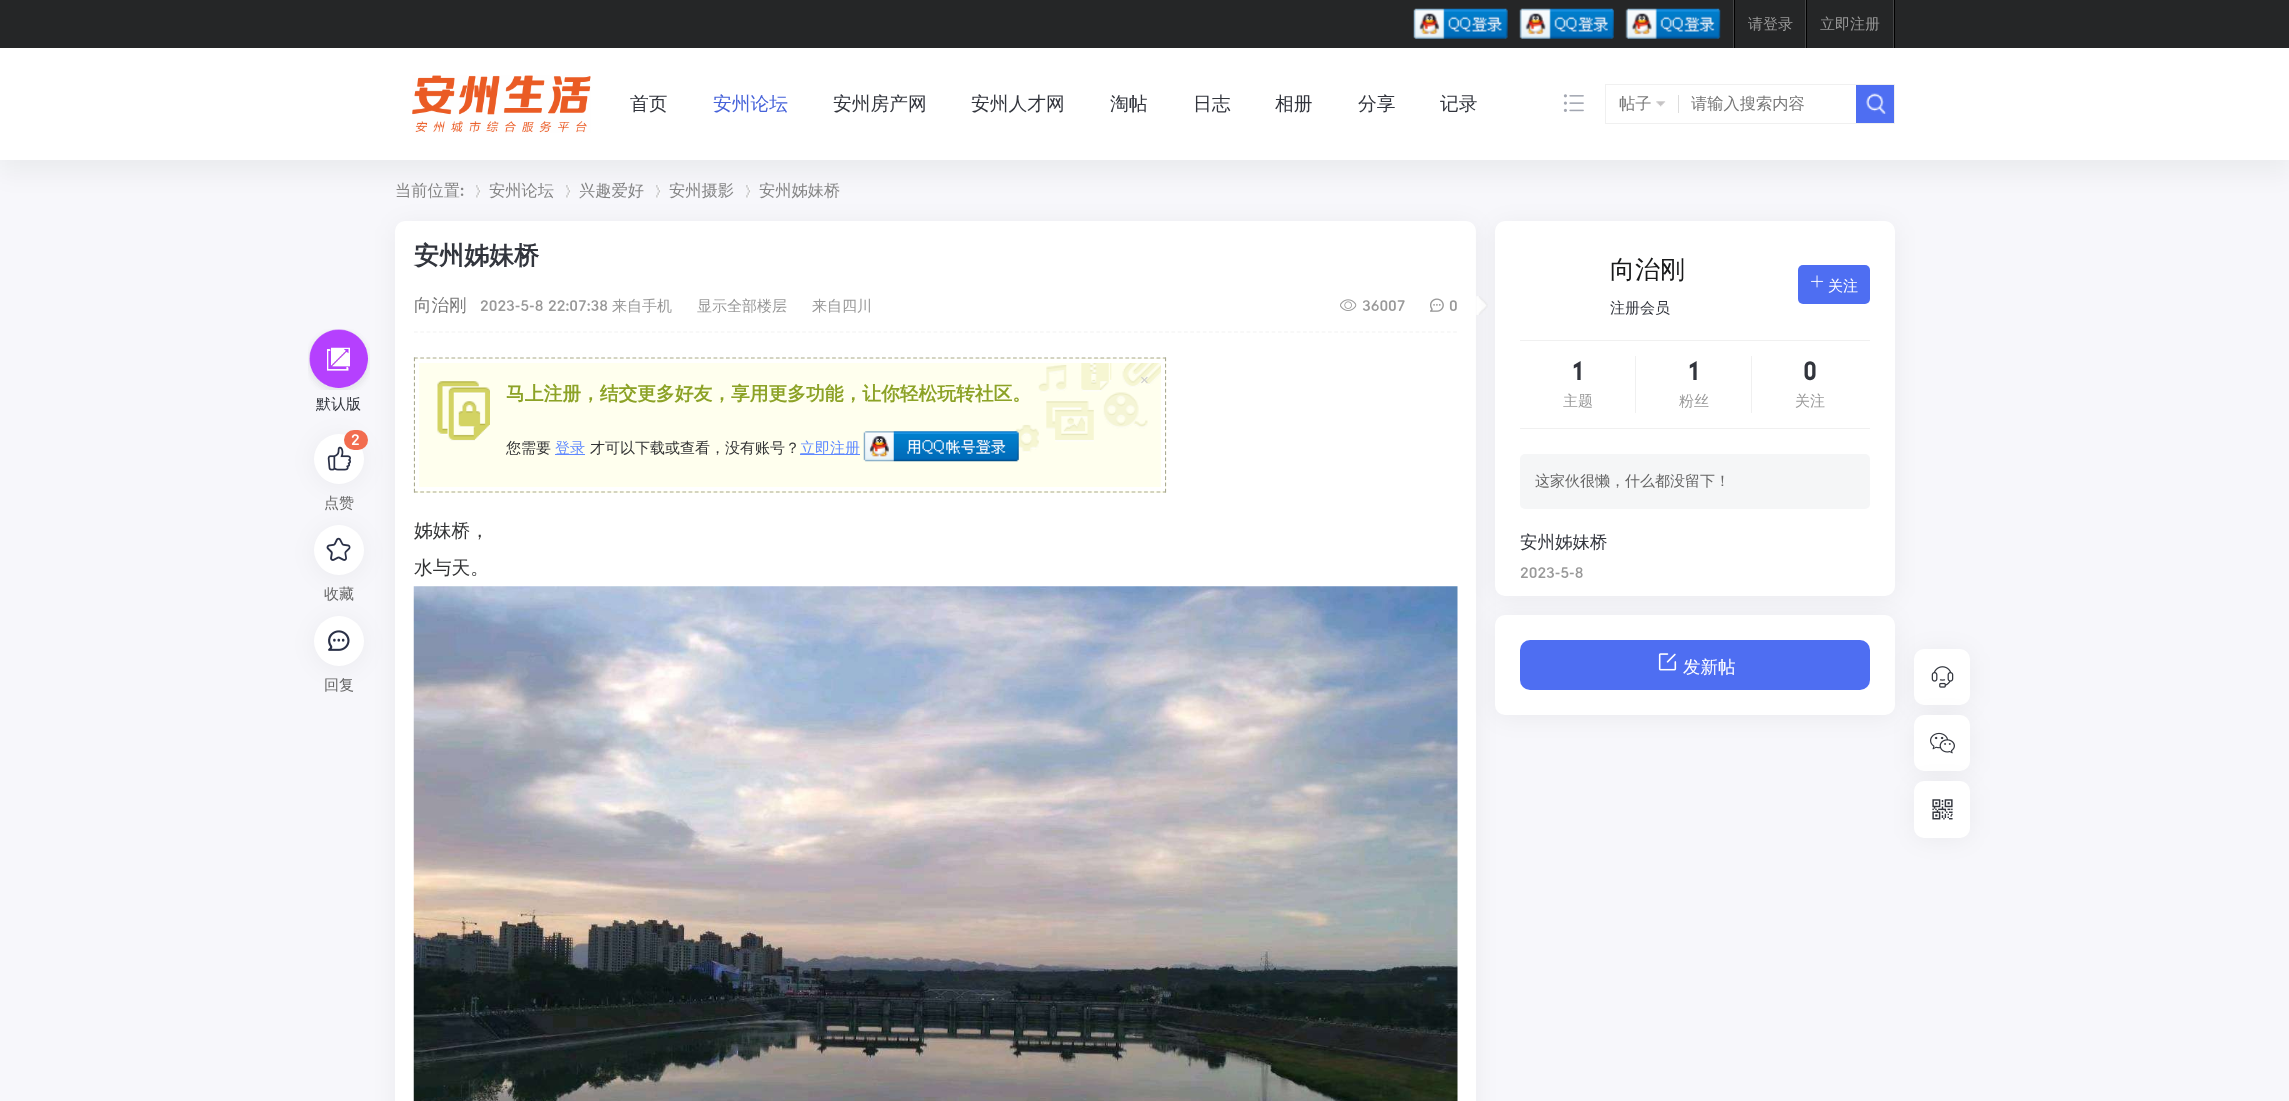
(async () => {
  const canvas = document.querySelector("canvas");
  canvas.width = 2289;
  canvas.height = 1101;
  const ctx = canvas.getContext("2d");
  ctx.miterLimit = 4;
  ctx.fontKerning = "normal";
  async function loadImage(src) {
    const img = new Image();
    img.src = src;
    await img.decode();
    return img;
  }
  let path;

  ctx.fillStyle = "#f7f7fb";
  ctx.fillRect(0, 0, 2289, 1101);
  ctx.fillStyle = "rgba(6, 11, 6, 0.05)";
  ctx.filter = "blur(12.5px)";
  ctx.beginPath();
  ctx.rect(0, 60, 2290, 113);
  ctx.fill();
  ctx.filter = "none";
  ctx.fillStyle = "#252627";
  ctx.fillRect(0, 0, 2289, 48);
  ctx.drawImage(await loadImage("img/1.png"), 1413, 8, 95, 31);
  ctx.drawImage(await loadImage("img/2.png"), 1519, 8, 95, 31);
  ctx.drawImage(await loadImage("img/3.png"), 1625, 8, 96, 31);
  for (const [x, y, w, h, color] of [
    [1894, 0, 1, 48, "#000000"],
    [1733, 0, 1, 48, "#444546"],
    [1805, 0, 1, 48, "#444546"],
    [1734, 0, 1, 48, "#000000"],
    [1893, 0, 1, 48, "#444546"],
    [1806, 0, 1, 48, "#000000"],
    [0, 48, 2289, 112, "#ffffff"],
  ]) {
    ctx.fillStyle = color;
    ctx.fillRect(x, y, w, h);
  }
  ctx.drawImage(await loadImage("img/4.png"), 412, 75, 179, 58);
  ctx.drawImage(await loadImage("img/5.png"), 1563, 94, 21, 18);
  ctx.strokeStyle = "#f0f0f0";
  ctx.strokeRect(1605.5, 84.5, 289, 39);
  ctx.drawImage(await loadImage("img/6.png"), 1656, 101, 10, 6);
  ctx.fillStyle = "#dddddd";
  ctx.fillRect(1678, 95, 1, 18);
  ctx.fillStyle = "#4e6ef2";
  ctx.fillRect(1856, 85, 38, 38);
  ctx.drawImage(await loadImage("img/7.png"), 1866, 93, 21, 21);
  ctx.fillStyle = "rgba(0, 0, 0, 0.05)";
  ctx.filter = "blur(12.5px)";
  ctx.beginPath();
  ctx.roundRect(395, 224, 1081, 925, 10);
  ctx.fill();
  ctx.filter = "none";
  ctx.drawImage(await loadImage("img/8.png"), 476, 185, 5, 13);
  ctx.drawImage(await loadImage("img/9.png"), 566, 185, 5, 13);
  ctx.drawImage(await loadImage("img/8.png"), 656, 185, 5, 13);
  ctx.drawImage(await loadImage("img/9.png"), 746, 185, 5, 13);
  ctx.drawImage(await loadImage("img/10.png"), 308, 329, 62, 61);
  ctx.fillStyle = "#ffffff";
  ctx.beginPath();
  ctx.roundRect(395, 221, 1081, 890, 10);
  ctx.fill();
  ctx.fillStyle = "rgba(0, 0, 0, 0.05)";
  ctx.filter = "blur(12.5px)";
  ctx.beginPath();
  ctx.roundRect(314, 436, 50, 50, 25);
  ctx.fill();
  ctx.filter = "none";
  ctx.fillStyle = "#ffffff";
  ctx.beginPath();
  ctx.arc(339, 459, 25, 0, Math.PI * 2);
  ctx.fill();
  ctx.drawImage(await loadImage("img/11.png"), 327, 446, 24, 25);
  ctx.fillStyle = "#f26c4f";
  ctx.beginPath();
  ctx.roundRect(344, 430, 24, 20, 10);
  ctx.fill();
  ctx.fillStyle = "rgba(0, 0, 0, 0.05)";
  ctx.filter = "blur(12.5px)";
  ctx.beginPath();
  ctx.roundRect(314, 528, 50, 50, 25);
  ctx.fill();
  ctx.filter = "none";
  ctx.fillStyle = "#ffffff";
  ctx.beginPath();
  ctx.arc(339, 550, 25, 0, Math.PI * 2);
  ctx.fill();
  ctx.drawImage(await loadImage("img/12.png"), 326, 537, 25, 24);
  ctx.fillStyle = "rgba(0, 0, 0, 0.05)";
  ctx.filter = "blur(12.5px)";
  ctx.beginPath();
  ctx.roundRect(314, 619, 50, 50, 25);
  ctx.fill();
  ctx.filter = "none";
  ctx.fillStyle = "#ffffff";
  ctx.beginPath();
  ctx.arc(339, 641, 25, 0, Math.PI * 2);
  ctx.fill();
  ctx.drawImage(await loadImage("img/13.png"), 328, 630, 22, 21);
  ctx.drawImage(await loadImage("img/14.png"), 1476, 296, 12, 19);
  path = new Path2D("M414 332H1457.5");
  ctx.strokeStyle = "#f1f1f1";
  ctx.lineWidth = 1.2;
  ctx.setLineDash([3.75, 2.51]);
  ctx.stroke(path);
  ctx.drawImage(await loadImage("img/15.png"), 1340, 299, 17, 12);
  ctx.drawImage(await loadImage("img/16.png"), 1430, 298, 14, 14);
  ctx.fillStyle = "#ffffee";
  ctx.fillRect(414, 358, 752, 135);
  ctx.drawImage(await loadImage("img/17.png"), 1013, 358, 149, 95);
  path = new Path2D("M414 358H1166");
  ctx.strokeStyle = "#aaaa92";
  ctx.setLineDash([3.75, 2.49]);
  ctx.stroke(path);
  path = new Path2D("M1165.5 357.5V492.5");
  ctx.setLineDash([3.75, 2.5]);
  ctx.stroke(path);
  path = new Path2D("M414 492H1166");
  ctx.setLineDash([3.75, 2.49]);
  ctx.stroke(path);
  path = new Path2D("M414.5 357.5V492.5");
  ctx.setLineDash([3.75, 2.5]);
  ctx.stroke(path);
  ctx.drawImage(await loadImage("img/18.png"), 437, 381, 53, 61);
  ctx.strokeStyle = "#ffffff";
  ctx.lineWidth = 4;
  ctx.setLineDash([]);
  ctx.strokeRect(417, 361, 746, 128);
  ctx.fillStyle = "#608aff";
  ctx.fillRect(555, 454, 30, 1);
  ctx.fillRect(800, 454, 60, 1);
  ctx.drawImage(await loadImage("img/19.png"), 863, 431, 156, 31);
  ctx.drawImage(await loadImage("img/20.png"), 413, 586, 1045, 515);
  ctx.fillStyle = "rgba(0, 0, 0, 0.05)";
  ctx.filter = "blur(12.5px)";
  ctx.beginPath();
  ctx.roundRect(1495, 224, 400, 375, 10);
  ctx.fill();
  ctx.filter = "none";
  ctx.fillStyle = "#ffffff";
  ctx.beginPath();
  ctx.roundRect(1495, 221, 400, 375, 10);
  ctx.fill();
  ctx.fillStyle = "#4e6ef2";
  ctx.beginPath();
  ctx.roundRect(1798, 265, 72, 39, 5);
  ctx.fill();
  ctx.drawImage(await loadImage("img/21.png"), 1811, 275, 13, 13);
  for (const [x, y, w, h, color] of [
    [1520, 340, 350, 1, "#f0f0f0"],
    [1520, 428, 350, 1, "#f0f0f0"],
    [1635, 356, 1, 57, "#f0f0f0"],
    [1751, 356, 1, 57, "#f0f0f0"],
  ]) {
    ctx.fillStyle = color;
    ctx.fillRect(x, y, w, h);
  }
  ctx.fillStyle = "#f5f6f7";
  ctx.beginPath();
  ctx.roundRect(1520, 454, 350, 55, 5);
  ctx.fill();
  ctx.fillStyle = "rgba(0, 0, 0, 0.05)";
  ctx.filter = "blur(12.5px)";
  ctx.beginPath();
  ctx.roundRect(1495, 618, 400, 100, 10);
  ctx.fill();
  ctx.filter = "none";
  ctx.fillStyle = "#ffffff";
  ctx.beginPath();
  ctx.roundRect(1495, 615, 400, 100, 10);
  ctx.fill();
  ctx.fillStyle = "#4e6ef2";
  ctx.beginPath();
  ctx.roundRect(1520, 640, 350, 50, 10);
  ctx.fill();
  ctx.drawImage(await loadImage("img/22.png"), 1658, 653, 19, 18);
  ctx.fillStyle = "rgba(0, 0, 0, 0.05)";
  ctx.filter = "blur(12.5px)";
  ctx.beginPath();
  ctx.roundRect(1914, 651, 56, 57, 10);
  ctx.fill();
  ctx.filter = "none";
  ctx.fillStyle = "#ffffff";
  ctx.beginPath();
  ctx.roundRect(1914, 649, 56, 56, 10);
  ctx.fill();
  ctx.drawImage(await loadImage("img/23.png"), 1931, 666, 23, 22);
  ctx.fillStyle = "rgba(0, 0, 0, 0.05)";
  ctx.filter = "blur(12.5px)";
  ctx.beginPath();
  ctx.roundRect(1914, 718, 56, 56, 10);
  ctx.fill();
  ctx.filter = "none";
  ctx.fillStyle = "#ffffff";
  ctx.beginPath();
  ctx.roundRect(1914, 715, 56, 56, 10);
  ctx.fill();
  ctx.drawImage(await loadImage("img/24.png"), 1930, 732, 25, 22);
  ctx.fillStyle = "rgba(0, 0, 0, 0.05)";
  ctx.filter = "blur(12.5px)";
  ctx.beginPath();
  ctx.roundRect(1914, 784, 56, 56, 10);
  ctx.fill();
  ctx.filter = "none";
  ctx.fillStyle = "#ffffff";
  ctx.beginPath();
  ctx.roundRect(1914, 781, 56, 57, 10);
  ctx.fill();
  ctx.drawImage(await loadImage("img/25.png"), 1932, 799, 21, 21);
  ctx.font = "500 15px WenQuanYi Zen Hei";
  ctx.fillStyle = "#999999";
  ctx.fillText("请登录", 1748, 29);
  ctx.fillText("立即注册", 1820, 29);
  ctx.font = "500 18.75px WenQuanYi Zen Hei";
  ctx.fillStyle = "#32353d";
  ctx.fillText("首页", 630, 110);
  ctx.fillStyle = "#4662d9";
  ctx.fillText("安州论坛", 713, 110);
  ctx.fillStyle = "#32353d";
  for (const [text, x, y] of [
    ["安州房产网", 833, 110],
    ["安州人才网", 971, 110],
    ["淘帖", 1110, 110],
    ["日志", 1193, 110],
    ["相册", 1275, 110],
    ["分享", 1358, 110],
    ["记录", 1440, 110],
  ]) {
    ctx.fillText(text, x, y);
  }
  ctx.font = "500 16.25px WenQuanYi Zen Hei";
  ctx.fillStyle = "#787878";
  ctx.fillText("帖子", 1619, 109);
  ctx.fillText("请输入搜索内容", 1691, 109);
  ctx.fillStyle = "#858585";
  ctx.fillText("当前位置", 395, 196);
  ctx.font = "bold 16.25px Lato";
  ctx.fillText(":", 460, 196);
  ctx.font = "500 16.25px WenQuanYi Zen Hei";
  for (const [text, x, y] of [
    ["安州论坛", 489, 196],
    ["兴趣爱好", 579, 196],
    ["安州摄影", 669, 196],
    ["安州姊妹桥", 759, 196],
  ]) {
    ctx.fillText(text, x, y);
  }
  ctx.font = "500 15px WenQuanYi Zen Hei";
  ctx.fillStyle = "#32353d";
  ctx.fillText("默认版", 316, 409);
  ctx.font = "bold 15px Lato";
  ctx.fillStyle = "#ffffff";
  ctx.fillText("2", 351, 445);
  ctx.font = "500 15px WenQuanYi Zen Hei";
  ctx.fillStyle = "#666666";
  for (const [text, x, y] of [
    ["点赞", 324, 508],
    ["收藏", 324, 599],
    ["回复", 324, 690],
  ]) {
    ctx.fillText(text, x, y);
  }
  ctx.font = "bold 25px WenQuanYi Zen Hei";
  ctx.fillStyle = "#32353d";
  ctx.fillText("安州姊妹桥", 414, 264);
  ctx.font = "500 17.5px WenQuanYi Zen Hei";
  ctx.fillStyle = "#787878";
  ctx.fillText("向治刚", 414, 311);
  ctx.font = "bold 15px Lato";
  ctx.fillStyle = "#999999";
  ctx.fillText("2023-5-8", 480, 311);
  ctx.fillText("22:07:38", 548, 311);
  ctx.font = "500 15px WenQuanYi Zen Hei";
  for (const [text, x, y] of [
    ["来自手机", 612, 311],
    ["显示全部楼层", 697, 311],
    ["来自四川", 812, 311],
  ]) {
    ctx.fillText(text, x, y);
  }
  ctx.font = "bold 15px Lato";
  ctx.fillText("36007", 1362, 311);
  ctx.fillText("0", 1449, 311);
  ctx.font = "15px Liberation Sans";
  ctx.fillStyle = "#cccccc";
  ctx.fillText("×", 1140, 385);
  ctx.font = "bold 18.75px WenQuanYi Zen Hei";
  ctx.fillStyle = "#8ca226";
  ctx.fillText("马上注册，结交更多好友，享用更多功能，让你轻松玩转社区。", 506, 400);
  ctx.font = "500 15px WenQuanYi Zen Hei";
  ctx.fillStyle = "#323334";
  ctx.fillText("您需要", 506, 453);
  ctx.fillStyle = "#608aff";
  ctx.fillText("登录", 555, 453);
  ctx.fillStyle = "#323334";
  ctx.fillText("才可以下载或查看，没有账号？", 590, 453);
  ctx.fillStyle = "#608aff";
  ctx.fillText("立即注册", 800, 453);
  ctx.font = "500 18.75px WenQuanYi Zen Hei";
  ctx.fillStyle = "#323334";
  ctx.fillText("姊妹桥，", 414, 537);
  ctx.fillText("水与天。", 414, 574);
  ctx.font = "500 25px WenQuanYi Zen Hei";
  ctx.fillStyle = "#18191a";
  ctx.fillText("向治刚", 1610, 278);
  ctx.font = "500 15px WenQuanYi Zen Hei";
  ctx.fillStyle = "#32353d";
  ctx.fillText("注册会员", 1610, 313);
  ctx.fillStyle = "#ffffff";
  ctx.fillText("关注", 1828, 291);
  ctx.font = "bold 25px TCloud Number";
  ctx.fillStyle = "#32353d";
  ctx.fillText("1", 1571, 380);
  ctx.font = "500 15px WenQuanYi Zen Hei";
  ctx.fillStyle = "#999999";
  ctx.fillText("主题", 1563, 406);
  ctx.font = "bold 25px TCloud Number";
  ctx.fillStyle = "#32353d";
  ctx.fillText("1", 1687, 380);
  ctx.font = "500 15px WenQuanYi Zen Hei";
  ctx.fillStyle = "#999999";
  ctx.fillText("粉丝", 1679, 406);
  ctx.font = "bold 25px TCloud Number";
  ctx.fillStyle = "#32353d";
  ctx.fillText("0", 1803, 380);
  ctx.font = "500 15px WenQuanYi Zen Hei";
  ctx.fillStyle = "#999999";
  ctx.fillText("关注", 1795, 406);
  ctx.fillStyle = "#666666";
  ctx.fillText("这家伙很懒，什么都没留下！", 1535, 486);
  ctx.font = "500 17.5px WenQuanYi Zen Hei";
  ctx.fillStyle = "#32353d";
  ctx.fillText("安州姊妹桥", 1520, 548);
  ctx.font = "bold 15px Lato";
  ctx.fillStyle = "#999999";
  ctx.fillText("2023-5-8", 1520, 578);
  ctx.font = "500 17.5px WenQuanYi Zen Hei";
  ctx.fillStyle = "#ffffff";
  ctx.fillText("发新帖", 1683, 673);
})();
